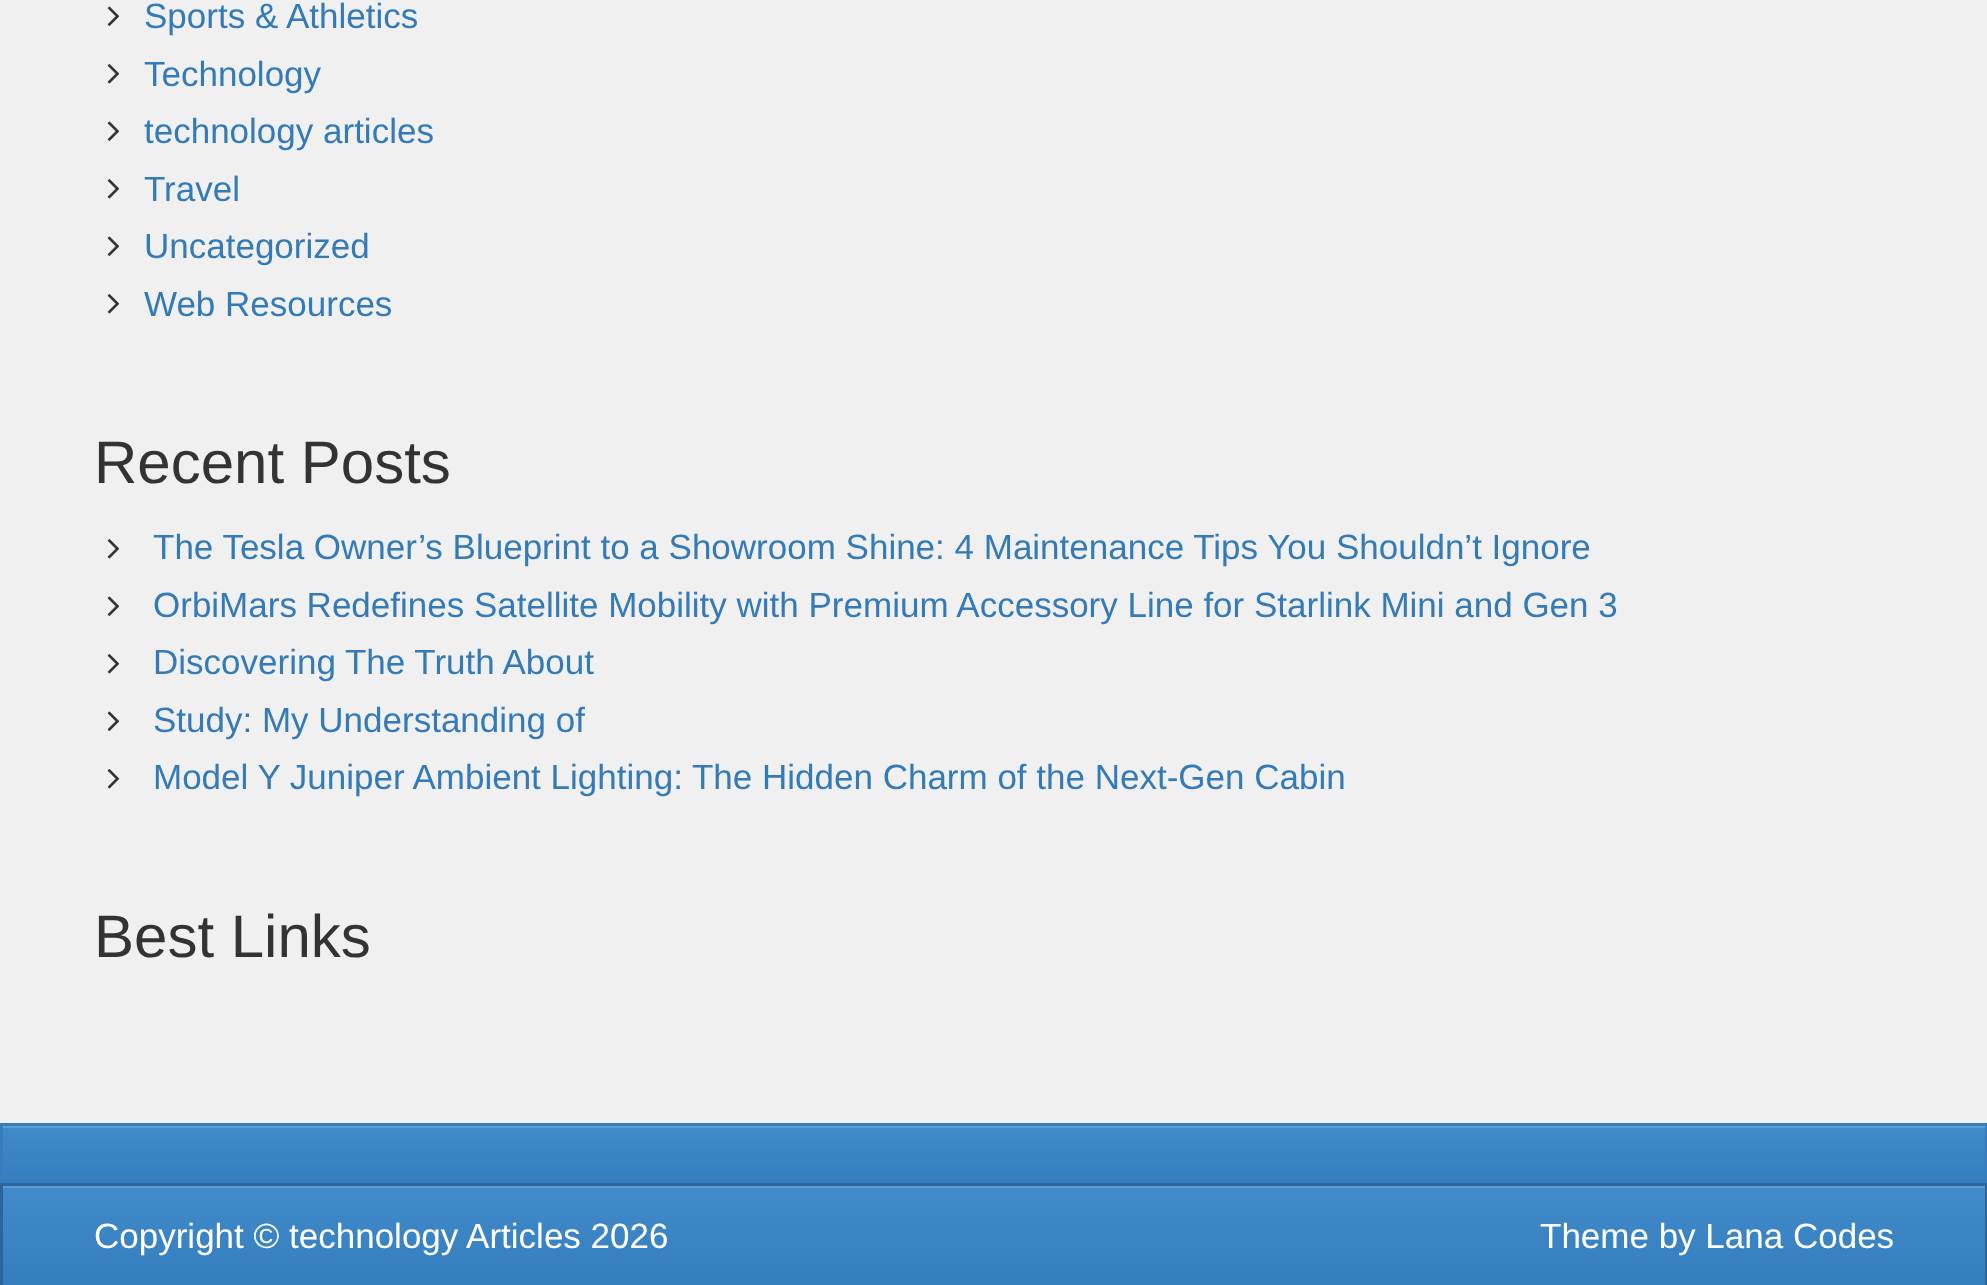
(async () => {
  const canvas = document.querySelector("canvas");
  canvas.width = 1987;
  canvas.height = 1285;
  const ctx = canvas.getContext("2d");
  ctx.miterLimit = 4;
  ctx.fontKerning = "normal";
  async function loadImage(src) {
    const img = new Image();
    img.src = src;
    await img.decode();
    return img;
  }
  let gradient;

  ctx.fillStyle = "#f0f0f0";
  ctx.fillRect(0, 0, 1987, 1285);
  ctx.drawImage(await loadImage("img/1.png"), 107, 6, 13, 20);
  ctx.drawImage(await loadImage("img/2.png"), 107, 64, 13, 20);
  ctx.drawImage(await loadImage("img/1.png"), 107, 121, 13, 20);
  ctx.drawImage(await loadImage("img/2.png"), 107, 179, 13, 20);
  ctx.drawImage(await loadImage("img/1.png"), 107, 236, 13, 20);
  ctx.drawImage(await loadImage("img/2.png"), 107, 294, 13, 20);
  ctx.drawImage(await loadImage("img/2.png"), 107, 539, 13, 20);
  ctx.drawImage(await loadImage("img/1.png"), 107, 596, 13, 20);
  ctx.drawImage(await loadImage("img/2.png"), 107, 654, 13, 20);
  ctx.drawImage(await loadImage("img/1.png"), 107, 711, 13, 20);
  ctx.drawImage(await loadImage("img/2.png"), 107, 769, 13, 20);
  gradient = ctx.createLinearGradient(994, 1125, 994, 1183);
  gradient.addColorStop(0, "#428bca");
  gradient.addColorStop(1, "#357ebd");
  ctx.fillStyle = gradient;
  ctx.fillRect(3, 1128, 1982, 55);
  for (const [x, y, w, h, color] of [
    [3, 1126, 1982, 2, "#5e9cd2"],
    [0, 1123, 1987, 3, "#357dbd"],
    [1985, 1123, 2, 60, "#357dbd"],
    [0, 1123, 3, 60, "#357dbd"],
  ]) {
    ctx.fillStyle = color;
    ctx.fillRect(x, y, w, h);
  }
  gradient = ctx.createLinearGradient(994, 1185, 994, 1285);
  gradient.addColorStop(0, "#428bca");
  gradient.addColorStop(1, "#357ebd");
  ctx.fillStyle = gradient;
  ctx.fillRect(3, 1188, 1982, 97);
  for (const [x, y, w, h, color] of [
    [3, 1186, 1982, 2, "#5e9cd2"],
    [0, 1183, 1987, 3, "#2b669a"],
    [1985, 1183, 2, 102, "#2b669a"],
    [0, 1183, 3, 102, "#2b669a"],
  ]) {
    ctx.fillStyle = color;
    ctx.fillRect(x, y, w, h);
  }
  ctx.font = "35px Liberation Sans";
  ctx.fillStyle = "#337ab7";
  for (const [text, x, y] of [
    ["Sports & Athletics", 144, 28],
    ["Technology", 144, 86],
    ["technology articles", 144, 143],
    ["Travel", 144, 201],
    ["Uncategorized", 144, 258],
    ["Web Resources", 144, 316],
  ]) {
    ctx.fillText(text, x, y);
  }
  ctx.font = "60px Liberation Sans";
  ctx.fillStyle = "#333333";
  ctx.fillText("Recent Posts", 94, 483);
  ctx.font = "35px Liberation Sans";
  ctx.fillStyle = "#337ab7";
  for (const [text, x, y] of [
    ["The Tesla Owner’s Blueprint to a Showroom Shine: 4 Maintenance Tips You Shouldn’t Ignore", 153, 559],
    ["OrbiMars Redefines Satellite Mobility with Premium Accessory Line for Starlink Mini and Gen 3", 153, 617],
    ["Discovering The Truth About", 153, 674],
    ["Study: My Understanding of", 153, 732],
    ["Model Y Juniper Ambient Lighting: The Hidden Charm of the Next-Gen Cabin", 153, 789],
  ]) {
    ctx.fillText(text, x, y);
  }
  ctx.font = "60px Liberation Sans";
  ctx.fillStyle = "#333333";
  ctx.fillText("Best Links", 94, 957);
  ctx.font = "35px Liberation Sans";
  ctx.fillStyle = "#ffffff";
  ctx.fillText("Copyright © technology Articles 2026", 94, 1248);
  ctx.fillText("Theme by Lana Codes", 1540, 1248);
})();
